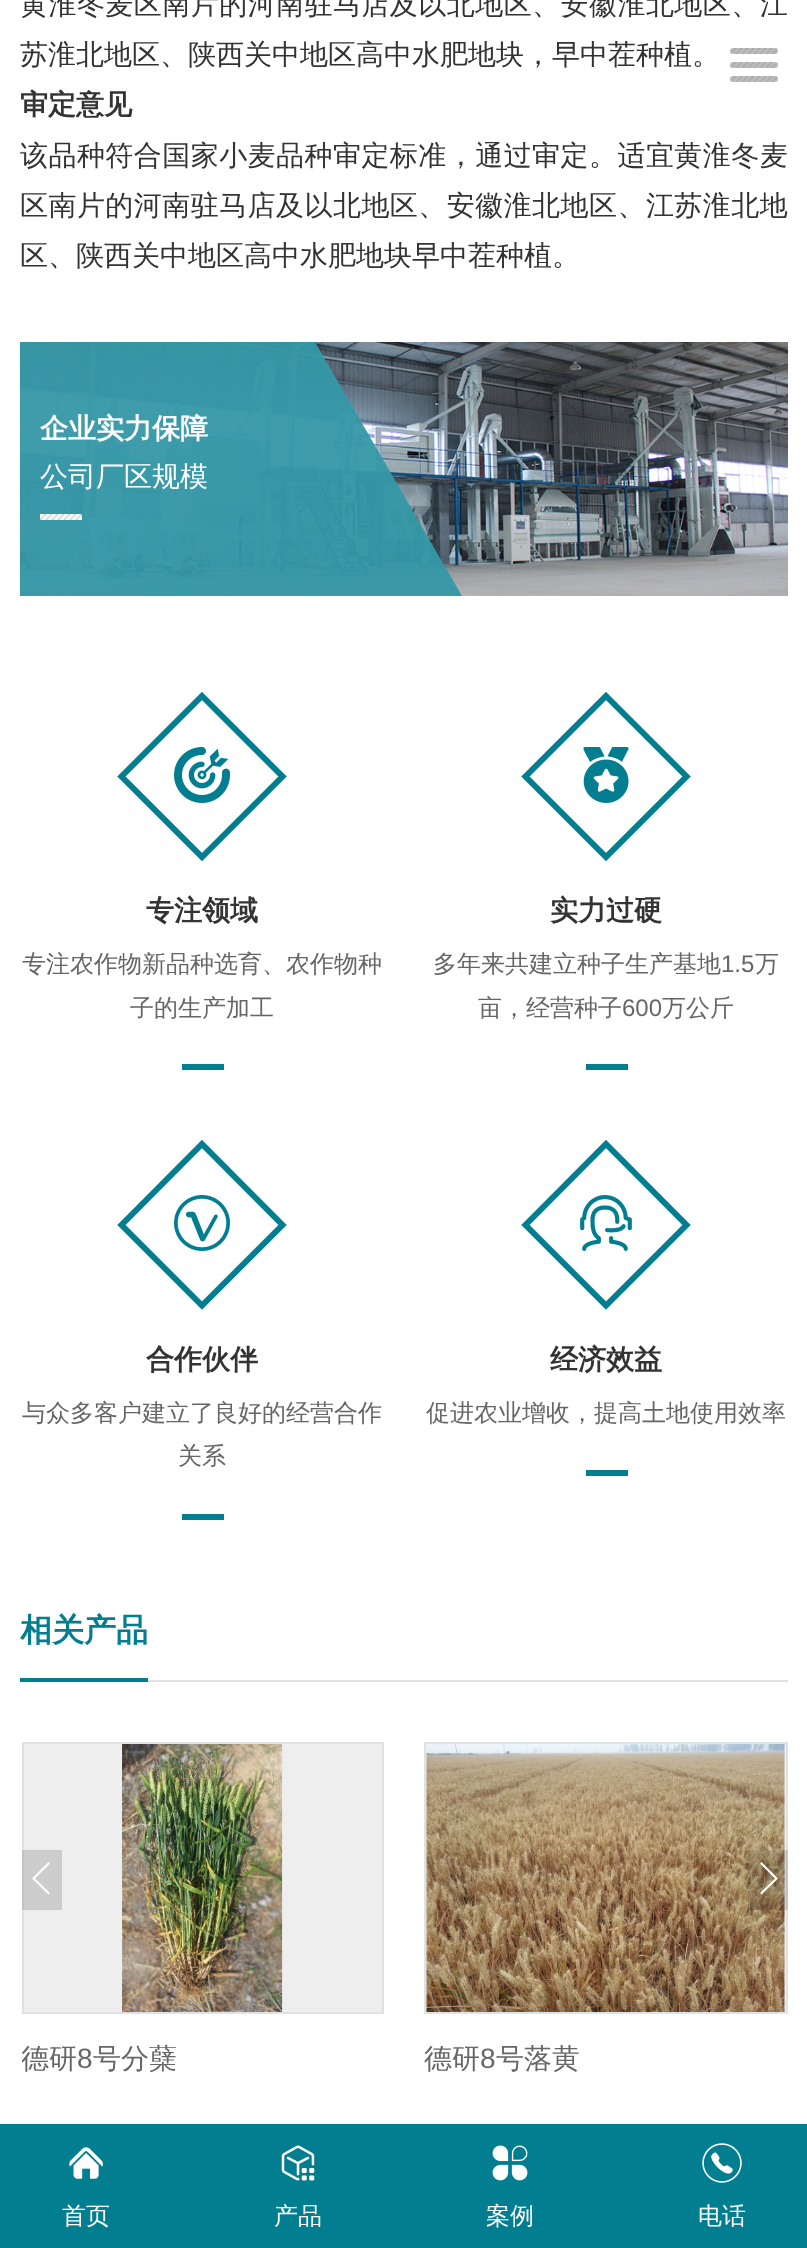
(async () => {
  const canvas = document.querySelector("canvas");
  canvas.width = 807;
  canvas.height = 2248;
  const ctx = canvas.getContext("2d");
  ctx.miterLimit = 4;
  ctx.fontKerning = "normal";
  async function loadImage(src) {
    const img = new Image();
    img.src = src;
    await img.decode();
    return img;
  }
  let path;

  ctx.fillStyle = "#ffffff";
  ctx.fillRect(0, 0, 807, 2248);
  ctx.drawImage(await loadImage("img/1.png"), 20, 342, 768, 254);
  ctx.save();
  ctx.beginPath();
  ctx.rect(20, 342, 768, 254);
  ctx.clip();
  ctx.fillStyle = "rgba(53, 152, 166, 0.95)";
  path = new Path2D("M-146 342H315L462 596H1Z");
  ctx.fill(path);
  ctx.restore();
  ctx.drawImage(await loadImage("img/2.png"), 40, 514, 42, 6);
  path = new Path2D("M202 696L282.5 776.5L202 857L121.5 776.5Z");
  ctx.strokeStyle = "#027e90";
  ctx.lineWidth = 6;
  ctx.stroke(path);
  ctx.drawImage(await loadImage("img/3.png"), 174, 747, 56, 56);
  ctx.fillStyle = "#027e90";
  ctx.fillRect(182, 1064, 42, 6);
  path = new Path2D("M606 696L686.5 776.5L606 857L525.5 776.5Z");
  ctx.stroke(path);
  ctx.drawImage(await loadImage("img/4.png"), 583, 747, 46, 56);
  ctx.fillRect(586, 1064, 42, 6);
  path = new Path2D("M202 1144L282.5 1225L202 1305.5L121.5 1225Z");
  ctx.stroke(path);
  ctx.drawImage(await loadImage("img/5.png"), 174, 1195, 56, 56);
  ctx.fillRect(182, 1514, 42, 6);
  path = new Path2D("M606 1144L686.5 1225L606 1305.5L525.5 1225Z");
  ctx.stroke(path);
  ctx.drawImage(await loadImage("img/6.png"), 580, 1195, 52, 56);
  for (const [x, y, w, h, color] of [
    [586, 1470, 42, 6, "#027e90"],
    [148, 1680, 640, 2, "#dee2e6"],
    [20, 1678, 128, 4, "#027e90"],
  ]) {
    ctx.fillStyle = color;
    ctx.fillRect(x, y, w, h);
  }
  ctx.fillStyle = "#eeeeee";
  ctx.beginPath();
  ctx.rect(23, 1743, 360, 270);
  ctx.fill();
  ctx.strokeStyle = "#dee2e6";
  ctx.lineWidth = 2;
  ctx.stroke();
  ctx.fillStyle = "rgba(53, 53, 53, 0.18)";
  ctx.fillRect(22, 1850, 40, 60);
  ctx.fillStyle = "#ffffff";
  path = new Path2D("M32 1878.5L48.5 1862L50 1863.5L35 1878.5L50 1893L48.5 1894.5Z");
  ctx.fill(path);
  ctx.fillStyle = "#eeeeee";
  ctx.beginPath();
  ctx.rect(425, 1743, 362, 270);
  ctx.fill();
  ctx.stroke();
  ctx.drawImage(await loadImage("img/8.png"), 426, 1744, 359, 268);
  ctx.fillStyle = "rgba(53, 53, 53, 0.18)";
  ctx.fillRect(748, 1850, 40, 60);
  ctx.fillStyle = "#ffffff";
  path = new Path2D("M778 1878.5L761.5 1894.5L760 1893L775 1878.5L760 1863.5L761.5 1862Z");
  ctx.fill(path);
  ctx.drawImage(await loadImage("img/7.png"), 122, 1744, 161, 268);
  ctx.drawImage(await loadImage("img/9.png"), 730, 48, 48, 6);
  ctx.drawImage(await loadImage("img/9.png"), 730, 62, 48, 6);
  ctx.drawImage(await loadImage("img/9.png"), 730, 76, 48, 6);
  ctx.fillStyle = "#027e90";
  ctx.fillRect(0, 2124, 807, 124);
  ctx.drawImage(await loadImage("img/10.png"), 69, 2147, 34, 32);
  ctx.drawImage(await loadImage("img/11.png"), 281, 2145, 34, 36);
  ctx.drawImage(await loadImage("img/12.png"), 492, 2145, 36, 36);
  ctx.drawImage(await loadImage("img/13.png"), 702, 2143, 40, 40);
  ctx.letterSpacing = "0.45px";
  ctx.font = "500 28px WenQuanYi Zen Hei";
  ctx.fillStyle = "#333333";
  ctx.fillText("黄淮冬麦区南片的河南驻马店及以北地区、安徽淮北地区、江", 20, 14);
  ctx.letterSpacing = "0px";
  ctx.fillText("苏淮北地区、陕西关中地区高中水肥地块，早中茬种植。", 20, 64);
  ctx.font = "bold 28px WenQuanYi Zen Hei";
  ctx.fillText("审定意见", 20, 114);
  ctx.letterSpacing = "0.45px";
  ctx.font = "500 28px WenQuanYi Zen Hei";
  ctx.fillText("该品种符合国家小麦品种审定标准，通过审定。适宜黄淮冬麦", 20, 165);
  ctx.fillText("区南片的河南驻马店及以北地区、安徽淮北地区、江苏淮北地", 20, 215);
  ctx.letterSpacing = "0px";
  ctx.fillText("区、陕西关中地区高中水肥地块早中茬种植。", 20, 265);
  ctx.font = "bold 28px WenQuanYi Zen Hei";
  ctx.fillStyle = "#ffffff";
  ctx.fillText("企业实力保障", 40, 438);
  ctx.font = "500 28px WenQuanYi Zen Hei";
  ctx.fillText("公司厂区规模", 40, 486);
  ctx.font = "bold 28px WenQuanYi Zen Hei";
  ctx.fillStyle = "#333333";
  ctx.fillText("专注领域", 146, 920);
  ctx.font = "500 24px WenQuanYi Zen Hei";
  ctx.fillStyle = "#666666";
  ctx.fillText("专注农作物新品种选育、农作物种", 22, 972);
  ctx.fillText("子的生产加工", 130, 1016);
  ctx.font = "bold 28px WenQuanYi Zen Hei";
  ctx.fillStyle = "#333333";
  ctx.fillText("实力过硬", 550, 920);
  ctx.font = "500 24px WenQuanYi Zen Hei";
  ctx.fillStyle = "#666666";
  ctx.fillText("多年来共建立种子生产基地", 433, 972);
  ctx.font = "24px Liberation Sans";
  ctx.fillText("1.5", 721, 972);
  ctx.font = "500 24px WenQuanYi Zen Hei";
  ctx.fillText("万", 755, 972);
  ctx.fillText("亩，经营种子", 478, 1016);
  ctx.font = "24px Liberation Sans";
  ctx.fillText("600", 622, 1016);
  ctx.font = "500 24px WenQuanYi Zen Hei";
  ctx.fillText("万公斤", 662, 1016);
  ctx.font = "bold 28px WenQuanYi Zen Hei";
  ctx.fillStyle = "#333333";
  ctx.fillText("合作伙伴", 146, 1369);
  ctx.font = "500 24px WenQuanYi Zen Hei";
  ctx.fillStyle = "#666666";
  ctx.fillText("与众多客户建立了良好的经营合作", 22, 1421);
  ctx.fillText("关系", 178, 1464);
  ctx.font = "bold 28px WenQuanYi Zen Hei";
  ctx.fillStyle = "#333333";
  ctx.fillText("经济效益", 550, 1369);
  ctx.font = "500 24px WenQuanYi Zen Hei";
  ctx.fillStyle = "#666666";
  ctx.fillText("促进农业增收，提高土地使用效率", 426, 1421);
  ctx.font = "bold 32px WenQuanYi Zen Hei";
  ctx.fillStyle = "#027e90";
  ctx.fillText("相关产品", 20, 1641);
  ctx.save();
  ctx.beginPath();
  ctx.rect(22, 2034, 362, 50);
  ctx.clip();
  ctx.font = "500 28px WenQuanYi Zen Hei";
  ctx.fillStyle = "#666666";
  ctx.fillText("德研", 21, 2068);
  ctx.restore();
  ctx.font = "28px Liberation Sans";
  ctx.fillStyle = "#666666";
  ctx.fillText("8", 77, 2068);
  ctx.font = "500 28px WenQuanYi Zen Hei";
  ctx.fillText("号分蘖", 93, 2068);
  ctx.fillText("德研", 424, 2068);
  ctx.font = "28px Liberation Sans";
  ctx.fillText("8", 480, 2068);
  ctx.font = "500 28px WenQuanYi Zen Hei";
  ctx.fillText("号落黄", 496, 2068);
  ctx.font = "500 24px WenQuanYi Zen Hei";
  ctx.fillStyle = "#ffffff";
  for (const [text, x, y] of [
    ["首页", 62, 2224],
    ["产品", 274, 2224],
    ["案例", 486, 2224],
    ["电话", 698, 2224],
  ]) {
    ctx.fillText(text, x, y);
  }
})();
